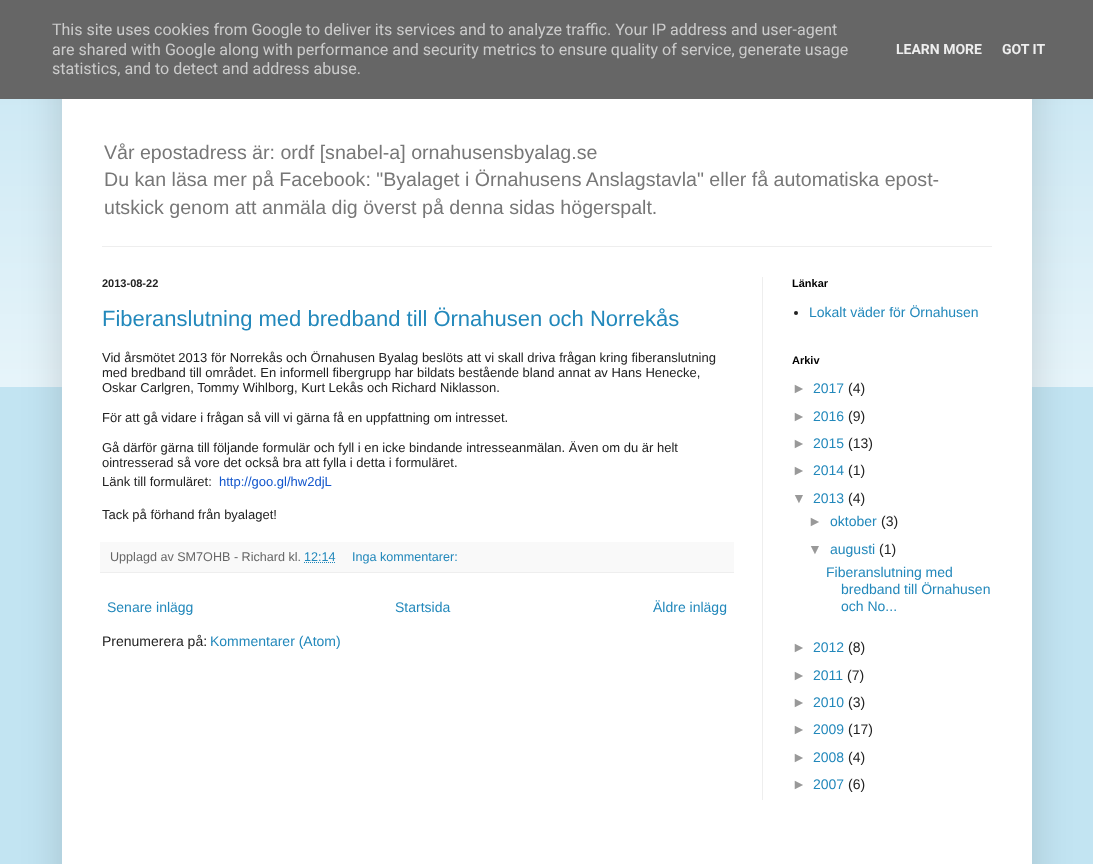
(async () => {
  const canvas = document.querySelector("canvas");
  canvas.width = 1093;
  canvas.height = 864;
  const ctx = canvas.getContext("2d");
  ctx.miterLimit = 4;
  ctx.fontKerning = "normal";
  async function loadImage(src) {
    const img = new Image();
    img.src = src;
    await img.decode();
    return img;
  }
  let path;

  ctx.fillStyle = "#c2e4f2";
  ctx.fillRect(0, 0, 1093, 864);
  ctx.drawImage(await loadImage("img/1.png"), 0, 99, 1093, 288);
  ctx.fillStyle = "rgba(0, 0, 0, 0.15)";
  ctx.filter = "blur(20px)";
  ctx.beginPath();
  ctx.rect(62, 17, 970, 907);
  ctx.fill();
  ctx.filter = "none";
  for (const [x, y, w, h, color] of [
    [0, 0, 1093, 99, "#666666"],
    [62, 99, 970, 765, "#ffffff"],
    [102, 246, 890, 1, "#eeeeee"],
    [762, 277, 1, 523, "#eeeeee"],
    [100, 542, 634, 30, "#f9f9f9"],
    [100, 572, 634, 1, "#eeeeee"],
  ]) {
    ctx.fillStyle = color;
    ctx.fillRect(x, y, w, h);
  }
  path = new Path2D("M304 562.5H335.5");
  ctx.strokeStyle = "#2288bb";
  ctx.setLineDash([1, 1]);
  ctx.stroke(path);
  ctx.fillStyle = "#222222";
  ctx.beginPath();
  ctx.arc(796, 313, 2, 0, Math.PI * 2);
  ctx.fill();
  ctx.font = "16px Roboto";
  ctx.fillStyle = "#cccccc";
  for (const [text, x, y] of [
    ["This site uses cookies from Google to deliver its services and to analyze traffic. Your IP address and user-agent", 52, 35],
    ["are shared with Google along with performance and security metrics to ensure quality of service, generate usage", 52, 55],
    ["statistics, and to detect and address abuse.", 52, 74],
  ]) {
    ctx.fillText(text, x, y);
  }
  ctx.font = "bold 14px Roboto";
  ctx.fillStyle = "#eeeeee";
  ctx.fillText("LEARN MORE", 896, 54);
  ctx.fillText("GOT IT", 1002, 54);
  ctx.font = "19.6px Liberation Sans";
  ctx.fillStyle = "#777777";
  for (const [text, x, y] of [
    ["Vår epostadress är: ordf [snabel-a] ornahusensbyalag.se", 104, 159],
    ["Du kan läsa mer på Facebook: \"Byalaget i Örnahusens Anslagstavla\" eller få automatiska epost-", 104, 186],
    ["utskick genom att anmäla dig överst på denna sidas högerspalt.", 104, 214],
  ]) {
    ctx.fillText(text, x, y);
  }
  ctx.font = "bold 11px Liberation Sans";
  ctx.fillStyle = "#222222";
  ctx.fillText("2013-08-22", 102, 287);
  ctx.font = "22px Liberation Sans";
  ctx.fillStyle = "#2288bb";
  ctx.fillText("Fiberanslutning med bredband till Örnahusen och Norrekås", 102, 326);
  ctx.font = "13px Liberation Sans";
  ctx.fillStyle = "#222222";
  for (const [text, x, y] of [
    ["Vid årsmötet 2013 för Norrekås och Örnahusen Byalag beslöts att vi skall driva frågan kring fiberanslutning", 102, 362],
    ["med bredband till området. En informell fibergrupp har bildats bestående bland annat av Hans Henecke,", 102, 377],
    ["Oskar Carlgren, Tommy Wihlborg, Kurt Lekås och Richard Niklasson.", 102, 392],
    ["För att gå vidare i frågan så vill vi gärna få en uppfattning om intresset.", 102, 422],
    ["Gå därför gärna till följande formulär och fyll i en icke bindande intresseanmälan. Även om du är helt", 102, 452],
    ["ointresserad så vore det också bra att fylla i detta i formuläret.", 102, 467],
    ["Länk till formuläret:", 102, 486],
  ]) {
    ctx.fillText(text, x, y);
  }
  ctx.fillStyle = "#1155cc";
  ctx.fillText("http://goo.gl/hw2djL", 219, 486);
  ctx.fillStyle = "#222222";
  ctx.fillText("Tack på förhand från byalaget!", 102, 519);
  ctx.font = "12.6px Liberation Sans";
  ctx.fillStyle = "#666666";
  ctx.fillText("Upplagd av SM7OHB - Richard kl.", 110, 561);
  ctx.fillStyle = "#2288bb";
  ctx.fillText("12:14", 304, 561);
  ctx.fillText("Inga kommentarer:", 352, 561);
  ctx.font = "14px Liberation Sans";
  for (const [text, x, y] of [
    ["Senare inlägg", 107, 612],
    ["Startsida", 395, 612],
    ["Äldre inlägg", 653, 612],
  ]) {
    ctx.fillText(text, x, y);
  }
  ctx.fillStyle = "#222222";
  ctx.fillText("Prenumerera på:", 102, 646);
  ctx.fillStyle = "#2288bb";
  ctx.fillText("Kommentarer (Atom)", 210, 646);
  ctx.font = "bold 11px Liberation Sans";
  ctx.fillStyle = "#000000";
  ctx.fillText("Länkar", 792, 287);
  ctx.font = "14px Liberation Sans";
  ctx.fillStyle = "#2288bb";
  ctx.fillText("Lokalt väder för Örnahusen", 809, 317);
  ctx.font = "bold 11px Liberation Sans";
  ctx.fillStyle = "#000000";
  ctx.fillText("Arkiv", 792, 364);
  ctx.font = "14px Liberation Sans";
  ctx.fillStyle = "#999999";
  ctx.fillText("►", 792, 393);
  ctx.fillStyle = "#2288bb";
  ctx.fillText("2017", 813, 393);
  ctx.fillStyle = "#222222";
  ctx.fillText("(4)", 848, 393);
  ctx.fillStyle = "#999999";
  ctx.fillText("►", 792, 421);
  ctx.fillStyle = "#2288bb";
  ctx.fillText("2016", 813, 421);
  ctx.fillStyle = "#222222";
  ctx.fillText("(9)", 848, 421);
  ctx.fillStyle = "#999999";
  ctx.fillText("►", 792, 448);
  ctx.fillStyle = "#2288bb";
  ctx.fillText("2015", 813, 448);
  ctx.fillStyle = "#222222";
  ctx.fillText("(13)", 848, 448);
  ctx.fillStyle = "#999999";
  ctx.fillText("►", 792, 475);
  ctx.fillStyle = "#2288bb";
  ctx.fillText("2014", 813, 475);
  ctx.fillStyle = "#222222";
  ctx.fillText("(1)", 848, 475);
  ctx.fillStyle = "#999999";
  ctx.fillText("▼", 792, 503);
  ctx.fillStyle = "#2288bb";
  ctx.fillText("2013", 813, 503);
  ctx.fillStyle = "#222222";
  ctx.fillText("(4)", 848, 503);
  ctx.fillStyle = "#999999";
  ctx.fillText("►", 808, 526);
  ctx.fillStyle = "#2288bb";
  ctx.fillText("oktober", 830, 526);
  ctx.fillStyle = "#222222";
  ctx.fillText("(3)", 881, 526);
  ctx.fillStyle = "#999999";
  ctx.fillText("▼", 808, 554);
  ctx.fillStyle = "#2288bb";
  ctx.fillText("augusti", 830, 554);
  ctx.fillStyle = "#222222";
  ctx.fillText("(1)", 879, 554);
  ctx.fillStyle = "#2288bb";
  for (const [text, x, y] of [
    ["Fiberanslutning med", 826, 577],
    ["bredband till Örnahusen", 841, 594],
    ["och No...", 841, 611],
  ]) {
    ctx.fillText(text, x, y);
  }
  ctx.fillStyle = "#999999";
  ctx.fillText("►", 792, 652);
  ctx.fillStyle = "#2288bb";
  ctx.fillText("2012", 813, 652);
  ctx.fillStyle = "#222222";
  ctx.fillText("(8)", 848, 652);
  ctx.fillStyle = "#999999";
  ctx.fillText("►", 792, 680);
  ctx.fillStyle = "#2288bb";
  ctx.fillText("2011", 813, 680);
  ctx.fillStyle = "#222222";
  ctx.fillText("(7)", 847, 680);
  ctx.fillStyle = "#999999";
  ctx.fillText("►", 792, 707);
  ctx.fillStyle = "#2288bb";
  ctx.fillText("2010", 813, 707);
  ctx.fillStyle = "#222222";
  ctx.fillText("(3)", 848, 707);
  ctx.fillStyle = "#999999";
  ctx.fillText("►", 792, 734);
  ctx.fillStyle = "#2288bb";
  ctx.fillText("2009", 813, 734);
  ctx.fillStyle = "#222222";
  ctx.fillText("(17)", 848, 734);
  ctx.fillStyle = "#999999";
  ctx.fillText("►", 792, 762);
  ctx.fillStyle = "#2288bb";
  ctx.fillText("2008", 813, 762);
  ctx.fillStyle = "#222222";
  ctx.fillText("(4)", 848, 762);
  ctx.fillStyle = "#999999";
  ctx.fillText("►", 792, 789);
  ctx.fillStyle = "#2288bb";
  ctx.fillText("2007", 813, 789);
  ctx.fillStyle = "#222222";
  ctx.fillText("(6)", 848, 789);
})();
